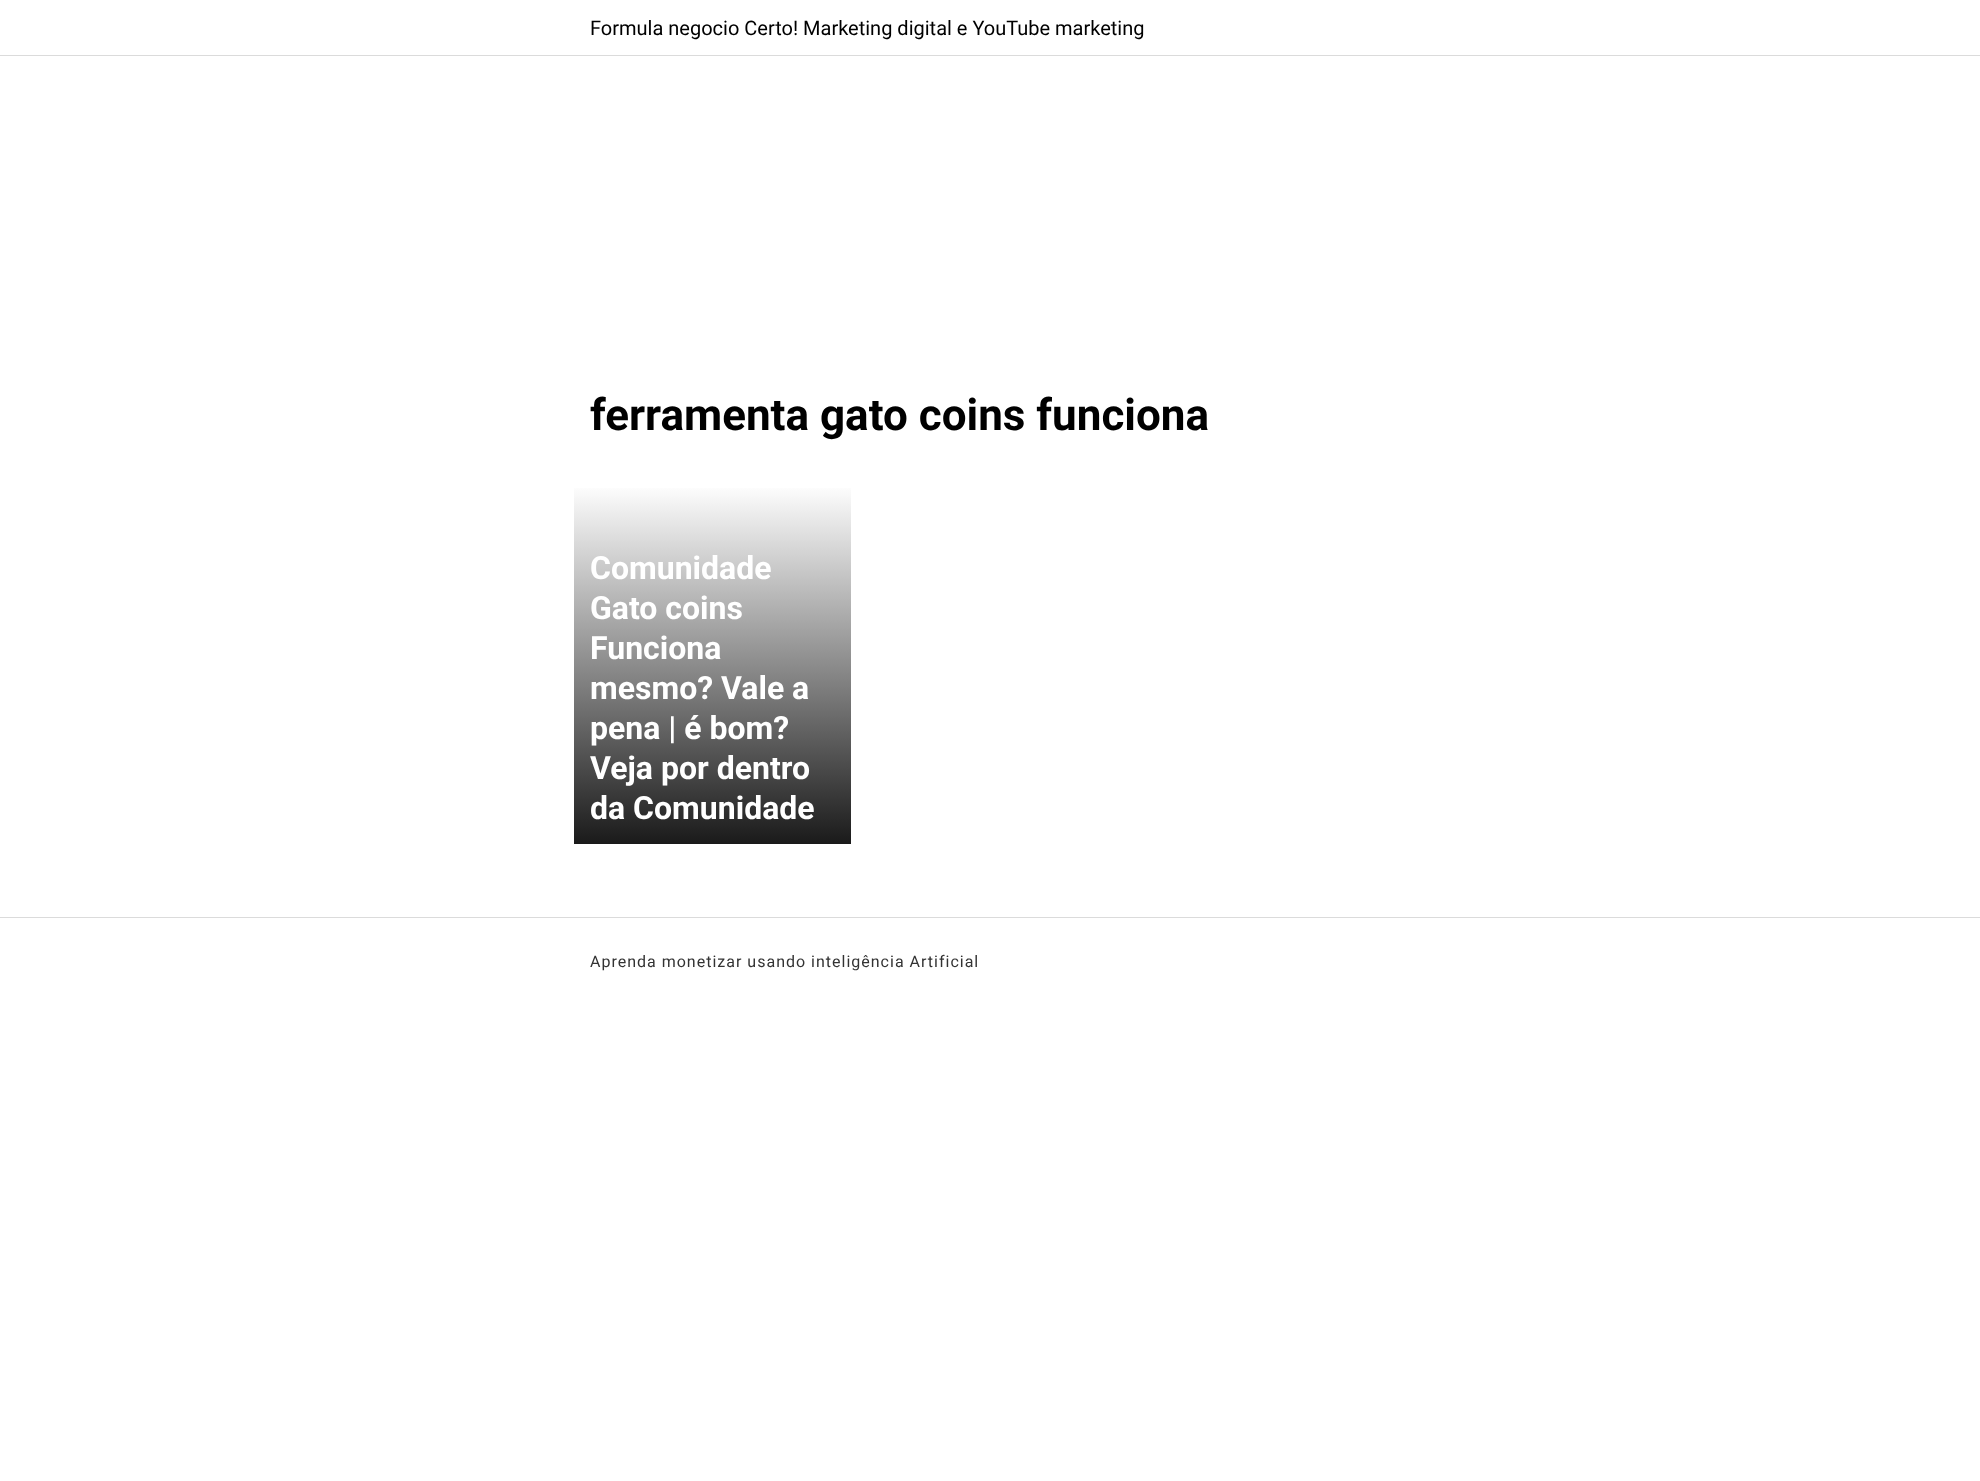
(async () => {
  const canvas = document.querySelector("canvas");
  canvas.width = 1980;
  canvas.height = 1481;
  const ctx = canvas.getContext("2d");
  ctx.miterLimit = 4;
  ctx.fontKerning = "normal";
  let gradient;

  ctx.fillStyle = "#ffffff";
  ctx.fillRect(0, 0, 1980, 1481);
  ctx.fillStyle = "#dbdbdb";
  ctx.fillRect(0, 55, 1980, 1);
  gradient = ctx.createLinearGradient(713, 484, 713, 844);
  gradient.addColorStop(0, "#ffffff");
  gradient.addColorStop(1, "#1a1a1a");
  ctx.fillStyle = gradient;
  ctx.fillRect(574, 488, 277, 356);
  ctx.fillStyle = "#dbdbdb";
  ctx.fillRect(0, 917, 1980, 1);
  ctx.font = "20px Roboto";
  ctx.fillStyle = "#000000";
  ctx.fillText("Formula negocio Certo! Marketing digital e YouTube marketing", 590, 35);
  ctx.font = "bold 44px Roboto";
  ctx.fillText("ferramenta gato coins funciona", 590, 430);
  ctx.font = "bold 32px Roboto";
  ctx.fillStyle = "#ffffff";
  for (const [text, x, y] of [
    ["Comunidade", 590, 579],
    ["Gato coins", 590, 619],
    ["Funciona", 590, 659],
    ["mesmo? Vale a", 590, 699],
    ["pena | é bom?", 590, 739],
    ["Veja por dentro", 590, 779],
    ["da Comunidade", 590, 819],
  ]) {
    ctx.fillText(text, x, y);
  }
  ctx.letterSpacing = "1px";
  ctx.font = "16px Roboto";
  ctx.fillStyle = "#333333";
  ctx.fillText("Aprenda monetizar usando inteligência Artificial", 590, 967);
})();
